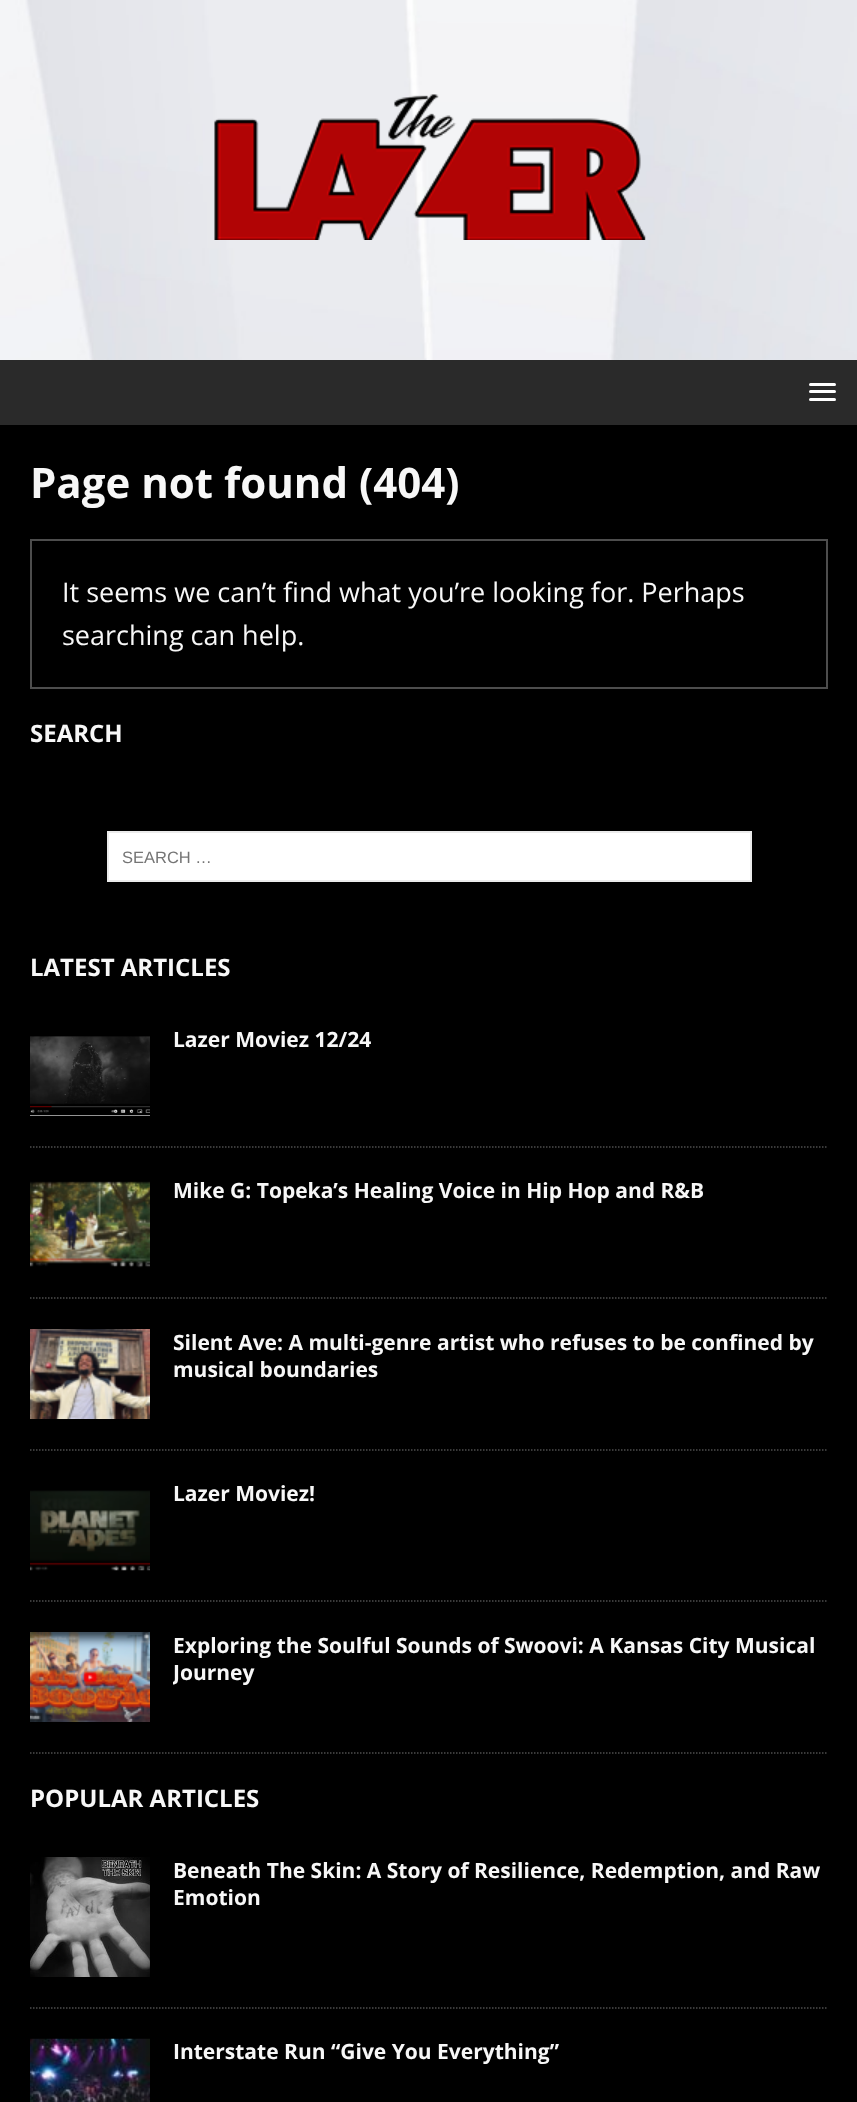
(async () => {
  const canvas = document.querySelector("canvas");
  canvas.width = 857;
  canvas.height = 2102;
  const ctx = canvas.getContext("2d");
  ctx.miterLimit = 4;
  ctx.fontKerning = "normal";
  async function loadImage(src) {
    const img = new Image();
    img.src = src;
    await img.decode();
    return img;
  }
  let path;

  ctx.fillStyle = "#ffffff";
  ctx.fillRect(0, 0, 857, 2102);
  ctx.drawImage(await loadImage("img/1.png"), 0, 0, 857, 360);
  ctx.drawImage(await loadImage("img/2.png"), 214, 94, 432, 146);
  ctx.fillStyle = "#2a2a2a";
  ctx.fillRect(0, 360, 857, 65);
  ctx.fillStyle = "#ffffff";
  ctx.beginPath();
  ctx.roundRect(809, 383, 27, 3, 1.5);
  ctx.fill();
  ctx.beginPath();
  ctx.roundRect(809, 390, 27, 3, 1.5);
  ctx.fill();
  ctx.beginPath();
  ctx.roundRect(809, 398, 27, 3, 1.5);
  ctx.fill();
  ctx.fillStyle = "#000000";
  ctx.fillRect(0, 425, 857, 1677);
  ctx.strokeStyle = "#4d4d4d";
  ctx.lineWidth = 2;
  ctx.strokeRect(31, 540, 796, 148);
  ctx.fillStyle = "#ffffff";
  ctx.beginPath();
  ctx.rect(108, 832, 643, 49);
  ctx.fill();
  ctx.strokeStyle = "#ebebeb";
  ctx.stroke();
  path = new Path2D("M30 1147H828");
  ctx.strokeStyle = "#4d4d4d";
  ctx.lineWidth = 1.5;
  ctx.setLineDash([1.5, 1.5]);
  ctx.stroke(path);
  ctx.drawImage(await loadImage("img/3.png"), 30, 1036, 120, 80);
  path = new Path2D("M30 1298H828");
  ctx.stroke(path);
  ctx.drawImage(await loadImage("img/4.png"), 30, 1181, 120, 87);
  path = new Path2D("M30 1450H828");
  ctx.stroke(path);
  ctx.drawImage(await loadImage("img/5.png"), 30, 1329, 120, 90);
  path = new Path2D("M30 1601H828");
  ctx.stroke(path);
  ctx.drawImage(await loadImage("img/6.png"), 30, 1490, 120, 81);
  path = new Path2D("M30 1753H828");
  ctx.stroke(path);
  ctx.drawImage(await loadImage("img/7.png"), 30, 1632, 120, 90);
  path = new Path2D("M30 2008H828");
  ctx.stroke(path);
  ctx.drawImage(await loadImage("img/8.png"), 30, 1857, 120, 120);
  ctx.drawImage(await loadImage("img/9.png"), 30, 2038, 120, 64);
  ctx.font = "bold 42px Open Sans";
  ctx.fillStyle = "#f7f7f7";
  ctx.fillText("Page not found (404)", 30, 498);
  ctx.font = "27px Open Sans";
  ctx.fillText("It seems we can’t find what you’re looking for. Perhaps", 62, 602);
  ctx.fillText("searching can help.", 62, 645);
  ctx.font = "bold 24px Open Sans";
  ctx.fillText("SEARCH", 30, 742);
  ctx.font = "16.5px Liberation Sans";
  ctx.fillStyle = "#757575";
  ctx.fillText("SEARCH …", 122, 863);
  ctx.font = "bold 24px Open Sans";
  ctx.fillStyle = "#f7f7f7";
  ctx.fillText("LATEST ARTICLES", 30, 976);
  ctx.font = "bold 21px Open Sans";
  for (const [text, x, y] of [
    ["Lazer Moviez 12/24", 173, 1047],
    ["Mike G: Topeka’s Healing Voice in Hip Hop and R&B", 173, 1198],
    ["Silent Ave: A multi-genre artist who refuses to be confined by", 173, 1350],
    ["musical boundaries", 173, 1377],
    ["Lazer Moviez!", 173, 1501],
    ["Exploring the Soulful Sounds of Swoovi: A Kansas City Musical", 173, 1653],
  ]) {
    ctx.fillText(text, x, y);
  }
  ctx.save();
  ctx.beginPath();
  ctx.rect(173, 1632, 655, 54);
  ctx.clip();
  ctx.fillText("Journey", 173, 1680);
  ctx.restore();
  ctx.font = "bold 24px Open Sans";
  ctx.fillText("POPULAR ARTICLES", 30, 1807);
  ctx.font = "bold 21px Open Sans";
  for (const [text, x, y] of [
    ["Beneath The Skin: A Story of Resilience, Redemption, and Raw", 173, 1878],
    ["Emotion", 173, 1905],
    ["Interstate Run “Give You Everything”", 173, 2059],
  ]) {
    ctx.fillText(text, x, y);
  }
})();
